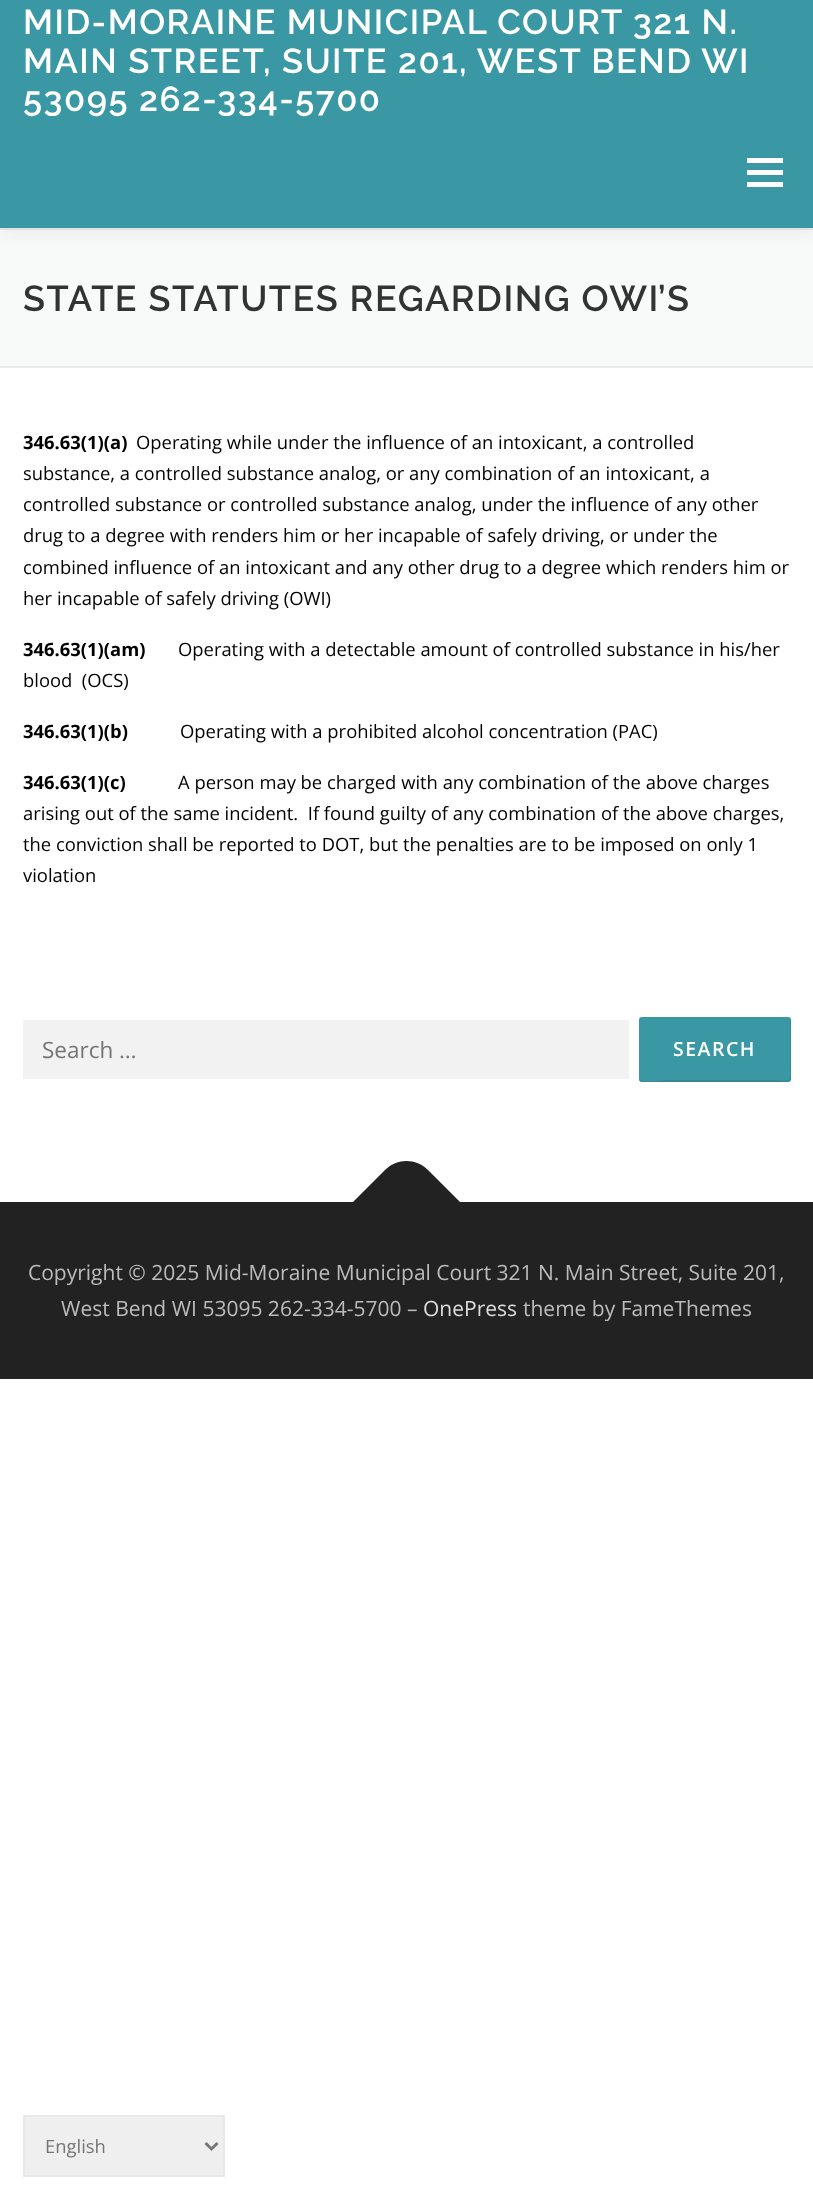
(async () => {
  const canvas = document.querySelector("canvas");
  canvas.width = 813;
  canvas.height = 2198;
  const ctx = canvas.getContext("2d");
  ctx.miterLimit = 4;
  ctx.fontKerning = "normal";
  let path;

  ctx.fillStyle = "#ffffff";
  ctx.fillRect(0, 0, 813, 2198);
  ctx.fillStyle = "#f8f9f9";
  ctx.fillRect(0, 230, 813, 136);
  ctx.fillStyle = "#e9e9e9";
  ctx.fillRect(0, 228, 813, 2);
  ctx.fillStyle = "rgba(50, 50, 50, 0.06)";
  ctx.filter = "blur(7.5px)";
  ctx.beginPath();
  ctx.rect(0, 8, 813, 228);
  ctx.fill();
  ctx.filter = "none";
  for (const [x, y, w, h, color] of [
    [0, 0, 813, 228, "#3998a3"],
    [747, 170, 36, 5, "#ffffff"],
    [747, 158, 36, 5, "#ffffff"],
    [747, 182, 36, 5, "#ffffff"],
    [0, 366, 813, 2, "#e9e9e9"],
    [23, 1020, 606, 59, "#f2f2f2"],
  ]) {
    ctx.fillStyle = color;
    ctx.fillRect(x, y, w, h);
  }
  ctx.fillStyle = "#3998a3";
  ctx.beginPath();
  ctx.roundRect(639, 1017, 152, 65, 3);
  ctx.fill();
  ctx.fillStyle = "rgba(0, 0, 0, 0.1)";
  path = new Path2D("M639 1077V1079C639 1081 640 1082 642 1082H788C790 1082 791 1081 791 1079V1020C791 1019 791 1018 790 1018V1057C790 1087 796 1080 764 1080H666C664 1080 639 1085 639 1077Z");
  ctx.fill(path);
  ctx.fillStyle = "#222222";
  ctx.fillRect(0, 1202, 813, 177);
  path = new Path2D("M353 1202L385 1170C397 1158 416 1158 428 1170L460 1202L406 1255Z");
  ctx.fill(path);
  ctx.fillStyle = "#efefef";
  ctx.beginPath();
  ctx.rect(24, 2116, 200, 60);
  ctx.fill();
  ctx.strokeStyle = "#e9e9e9";
  ctx.lineWidth = 2;
  ctx.stroke();
  path = new Path2D("M205.5 2143L211.5 2149L217.5 2143");
  ctx.strokeStyle = "#777777";
  ctx.lineWidth = 3;
  ctx.stroke(path);
  ctx.letterSpacing = "1.5px";
  ctx.font = "600 34.5px Raleway";
  ctx.fillStyle = "#ffffff";
  for (const [text, x, y] of [
    ["MID-MORAINE MUNICIPAL COURT 321 N.", 23, 34],
    ["MAIN STREET, SUITE 201, WEST BEND WI", 23, 73],
    ["53095 262-334-5700", 23, 111],
  ]) {
    ctx.fillText(text, x, y);
  }
  ctx.font = "600 36px Raleway";
  ctx.fillStyle = "#333333";
  ctx.fillText("STATE STATUTES REGARDING OWI’S", 23, 311);
  ctx.letterSpacing = "0px";
  ctx.font = "bold 18.4px Open Sans";
  ctx.fillStyle = "#000000";
  ctx.fillText("346.63(1)(a)", 23, 449);
  ctx.font = "18.4px Open Sans";
  for (const [text, x, y] of [
    ["Operating while under the influence of an intoxicant, a controlled", 136, 449],
    ["substance, a controlled substance analog, or any combination of an intoxicant, a", 23, 480],
    ["controlled substance or controlled substance analog, under the influence of any other", 23, 511],
    ["drug to a degree with renders him or her incapable of safely driving, or under the", 23, 542],
    ["combined influence of an intoxicant and any other drug to a degree which renders him or", 23, 574],
    ["her incapable of safely driving (OWI)", 23, 605],
  ]) {
    ctx.fillText(text, x, y);
  }
  ctx.font = "bold 18.4px Open Sans";
  ctx.fillText("346.63(1)(am)", 23, 656);
  ctx.font = "18.4px Open Sans";
  ctx.fillText("Operating with a detectable amount of controlled substance in his/her", 178, 656);
  ctx.fillText("blood  (OCS)", 23, 687);
  ctx.font = "bold 18.4px Open Sans";
  ctx.fillText("346.63(1)(b)", 23, 738);
  ctx.font = "18.4px Open Sans";
  ctx.fillText("Operating with a prohibited alcohol concentration (PAC)", 180, 738);
  ctx.font = "bold 18.4px Open Sans";
  ctx.fillText("346.63(1)(c)", 23, 789);
  ctx.font = "18.4px Open Sans";
  for (const [text, x, y] of [
    ["A person may be charged with any combination of the above charges", 178, 789],
    ["arising out of the same incident.  If found guilty of any combination of the above charges,", 23, 820],
    ["the conviction shall be reported to DOT, but the penalties are to be imposed on only 1", 23, 851],
    ["violation", 23, 882],
  ]) {
    ctx.fillText(text, x, y);
  }
  ctx.font = "22.5px Open Sans";
  ctx.fillStyle = "#757575";
  ctx.fillText("Search …", 42, 1058);
  ctx.letterSpacing = "1.5px";
  ctx.font = "600 19.5px Open Sans";
  ctx.fillStyle = "#ffffff";
  ctx.fillText("SEARCH", 673, 1056);
  ctx.letterSpacing = "0px";
  ctx.font = "21px Open Sans";
  ctx.fillStyle = "#bbbbbb";
  ctx.fillText("Copyright © 2025 Mid-Moraine Municipal Court 321 N. Main Street, Suite 201,", 28, 1280);
  ctx.fillText("West Bend WI 53095 262-334-5700 –", 61, 1316);
  ctx.fillStyle = "#dddddd";
  ctx.fillText("OnePress", 423, 1316);
  ctx.fillStyle = "#bbbbbb";
  ctx.fillText("theme by FameThemes", 523, 1316);
  ctx.font = "18.4px Open Sans";
  ctx.fillStyle = "#757575";
  ctx.fillText("English", 45, 2153);
})();
